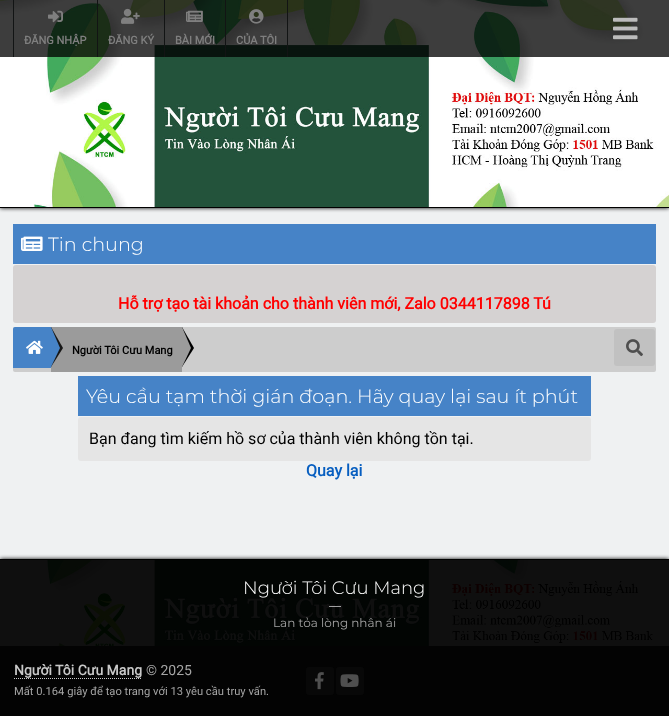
(async () => {
  const canvas = document.querySelector("canvas");
  canvas.width = 669;
  canvas.height = 716;
  const ctx = canvas.getContext("2d");
  ctx.miterLimit = 4;
  ctx.fontKerning = "normal";
  async function loadImage(src) {
    const img = new Image();
    img.src = src;
    await img.decode();
    return img;
  }
  let path;

  ctx.fillStyle = "#eff1f2";
  ctx.fillRect(0, 0, 669, 716);
  ctx.fillStyle = "#000000";
  ctx.filter = "blur(2px)";
  ctx.beginPath();
  ctx.rect(0, 0, 669, 208);
  ctx.fill();
  ctx.filter = "none";
  ctx.fillRect(0, 207, 669, 1);
  ctx.drawImage(await loadImage("img/1.png"), 0, 0, 669, 207);
  for (const [x, y, w, h, color] of [
    [0, 0, 669, 57, "rgba(0, 0, 0, 0.76)"],
    [97, 0, 1, 57, "#121414"],
    [13, 0, 1, 57, "#121414"],
  ]) {
    ctx.fillStyle = color;
    ctx.fillRect(x, y, w, h);
  }
  ctx.drawImage(await loadImage("img/2.png"), 48, 10, 15, 13);
  ctx.fillRect(164, 0, 1, 57);
  ctx.drawImage(await loadImage("img/3.png"), 121, 8, 19, 16);
  ctx.fillRect(225, 0, 1, 57);
  ctx.drawImage(await loadImage("img/4.png"), 186, 10, 17, 12);
  ctx.fillRect(287, 0, 1, 57);
  ctx.drawImage(await loadImage("img/5.png"), 249, 9, 15, 15);
  ctx.drawImage(await loadImage("img/6.png"), 613, 17, 25, 23);
  ctx.fillStyle = "#4683c7";
  ctx.fillRect(13, 224, 643, 40);
  ctx.drawImage(await loadImage("img/7.png"), 21, 236, 22, 15);
  ctx.fillStyle = "#d5d2d2";
  ctx.beginPath();
  ctx.roundRect(13, 265, 643, 58, 3);
  ctx.fill();
  ctx.fillStyle = "#cdcdcd";
  ctx.beginPath();
  ctx.roundRect(13, 327, 643, 45, 2);
  ctx.fill();
  ctx.fillStyle = "#4683c7";
  ctx.beginPath();
  ctx.roundRect(13, 327, 38, 41, [2, 0, 0, 0]);
  ctx.fill();
  ctx.drawImage(await loadImage("img/8.png"), 26, 340, 17, 14);
  ctx.fillStyle = "#9b9b9b";
  ctx.fillRect(51, 327, 131, 45);
  ctx.fillStyle = "#171717";
  path = new Path2D("M51 367V327L63 348Z");
  ctx.fill(path);
  ctx.fillStyle = "#4683c7";
  path = new Path2D("M51 367V327L60 348Z");
  ctx.fill(path);
  ctx.fillStyle = "#000000";
  path = new Path2D("M182 367V327L194 348Z");
  ctx.fill(path);
  ctx.fillStyle = "#9b9b9b";
  path = new Path2D("M182 367V327L191 348Z");
  ctx.fill(path);
  ctx.fillStyle = "#c1c1c1";
  ctx.beginPath();
  ctx.roundRect(614, 329, 41, 37, 3);
  ctx.fill();
  ctx.drawImage(await loadImage("img/9.png"), 626, 339, 17, 18);
  ctx.fillStyle = "#4683c7";
  ctx.fillRect(78, 376, 513, 40);
  ctx.fillStyle = "#e5e5e5";
  ctx.beginPath();
  ctx.roundRect(78, 417, 513, 44, 3);
  ctx.fill();
  ctx.fillStyle = "#000000";
  ctx.filter = "blur(2px)";
  ctx.beginPath();
  ctx.rect(0, 559, 669, 157);
  ctx.fill();
  ctx.filter = "none";
  ctx.fillRect(0, 559, 669, 1);
  ctx.drawImage(await loadImage("img/10.png"), 0, 560, 669, 86);
  for (const [x, y, w, h, color] of [
    [0, 560, 669, 86, "rgba(0, 0, 0, 0.94)"],
    [329, 606, 12, 1, "rgba(255, 255, 255, 0.62)"],
    [0, 646, 669, 70, "#030303"],
  ]) {
    ctx.fillStyle = color;
    ctx.fillRect(x, y, w, h);
  }
  path = new Path2D("M14 678.5H142");
  ctx.strokeStyle = "#c9c9c9";
  ctx.setLineDash([1, 1]);
  ctx.stroke(path);
  ctx.fillStyle = "#080808";
  ctx.beginPath();
  ctx.roundRect(306, 667, 28, 28, 3);
  ctx.fill();
  ctx.drawImage(await loadImage("img/11.png"), 315, 672, 9, 18);
  ctx.beginPath();
  ctx.roundRect(336, 667, 28, 28, 3);
  ctx.fill();
  ctx.drawImage(await loadImage("img/12.png"), 340, 674, 19, 13);
  ctx.font = "bold 11px Roboto";
  ctx.fillStyle = "#7f7f7f";
  for (const [text, x, y] of [
    ["ĐĂNG NHẬP", 24, 44],
    ["ĐĂNG KÝ", 108, 44],
    ["BÀI MỚI", 175, 44],
    ["CỦA TÔI", 236, 44],
  ]) {
    ctx.fillText(text, x, y);
  }
  ctx.font = "300 19.2px Montserrat";
  ctx.fillStyle = "#ffffff";
  ctx.fillText("Tin chung", 48, 251);
  ctx.font = "bold 16px Roboto";
  ctx.fillStyle = "#ff0000";
  ctx.fillText("Hỗ trợ tạo tài khoản cho thành viên mới, Zalo 0344117898 Tú", 118, 309);
  ctx.font = "bold 11px Roboto";
  ctx.fillStyle = "#000000";
  ctx.fillText("Người Tôi Cưu Mang", 72, 354);
  ctx.font = "300 19.2px Montserrat";
  ctx.fillStyle = "#ffffff";
  ctx.fillText("Yêu cầu tạm thời gián đoạn. Hãy quay lại sau ít phút", 86, 403);
  ctx.font = "16px Roboto";
  ctx.fillStyle = "#000000";
  ctx.fillText("Bạn đang tìm kiếm hồ sơ của thành viên không tồn tại.", 89, 444);
  ctx.font = "bold 16px Roboto";
  ctx.fillStyle = "#065ec0";
  ctx.fillText("Quay lại", 306, 476);
  ctx.font = "300 18px Montserrat";
  ctx.fillStyle = "#ffffff";
  ctx.fillText("Người Tôi Cưu Mang", 243, 594);
  ctx.font = "12px Montserrat";
  ctx.fillStyle = "#a4a4a4";
  ctx.fillText("Lan tỏa lòng nhân ái", 273, 627);
  ctx.font = "bold 14px Roboto";
  ctx.fillStyle = "#c9c9c9";
  ctx.fillText("Người Tôi Cưu Mang", 14, 675);
  ctx.font = "14px Roboto";
  ctx.fillStyle = "#a4a4a4";
  ctx.fillText("© 2025", 146, 675);
  ctx.font = "11.2px Roboto";
  ctx.fillText("Mất 0.164 giây để tạo trang với 13 yêu cầu truy vấn.", 14, 695);
})();
